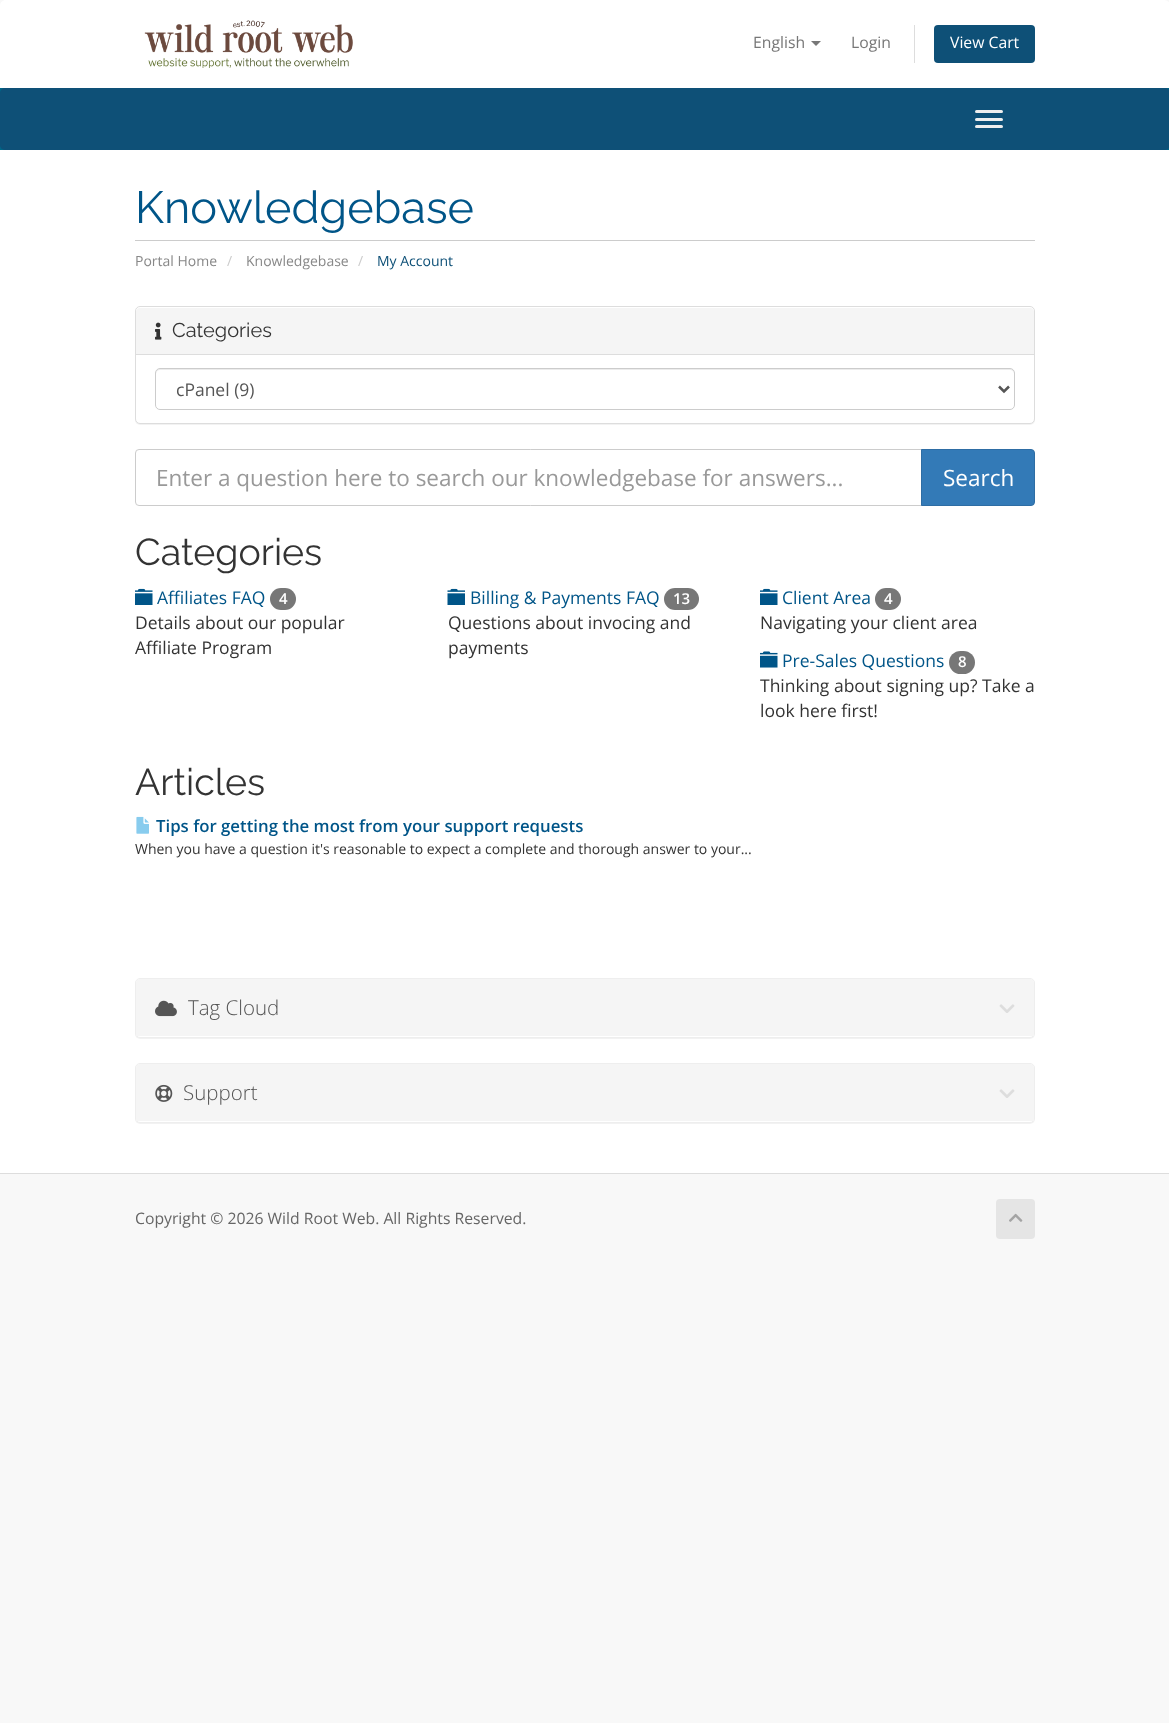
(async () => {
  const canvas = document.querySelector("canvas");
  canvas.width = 1169;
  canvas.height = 1723;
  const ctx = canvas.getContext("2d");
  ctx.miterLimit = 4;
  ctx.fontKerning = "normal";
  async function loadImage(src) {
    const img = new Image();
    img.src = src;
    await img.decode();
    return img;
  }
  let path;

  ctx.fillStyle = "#f8f8f8";
  ctx.fillRect(0, 0, 1169, 1723);
  ctx.fillStyle = "#ffffff";
  path = new Path2D("M6 0H1164C1167.5 0 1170 2.5 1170 6V88H0V6C0 2.5 2.5 0 6 0Z");
  ctx.fill(path);
  ctx.drawImage(await loadImage("img/1.png"), 144, 20, 209, 48);
  ctx.fillStyle = "#777777";
  path = new Path2D("M811 41H821L816 46Z");
  ctx.fill(path);
  ctx.fillStyle = "#dddddd";
  ctx.fillRect(914, 25, 1, 38);
  ctx.fillStyle = "#0e5077";
  ctx.beginPath();
  ctx.roundRect(934, 25, 101, 38, 4);
  ctx.fill();
  ctx.fillStyle = "#006687";
  ctx.fillRect(0, 88, 1169, 62);
  ctx.fillStyle = "#0e5077";
  ctx.beginPath();
  ctx.roundRect(0, 88, 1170, 62, 5);
  ctx.fill();
  ctx.fillStyle = "#eeeeee";
  ctx.beginPath();
  ctx.roundRect(975, 110, 28, 3, 1.5);
  ctx.fill();
  ctx.beginPath();
  ctx.roundRect(975, 118, 28, 3, 1.5);
  ctx.fill();
  ctx.beginPath();
  ctx.roundRect(975, 125, 28, 3, 1.5);
  ctx.fill();
  ctx.fillStyle = "#ffffff";
  ctx.fillRect(0, 150, 1169, 1023);
  ctx.fillStyle = "#cccccc";
  ctx.fillRect(135, 240, 900, 1);
  ctx.fillStyle = "rgba(0, 0, 0, 0.05)";
  ctx.filter = "blur(0.5px)";
  ctx.beginPath();
  ctx.roundRect(135, 308, 900, 117, 5);
  ctx.fill();
  ctx.filter = "none";
  ctx.fillStyle = "#ffffff";
  ctx.beginPath();
  ctx.roundRect(135.5, 306.5, 899, 117, 4.5);
  ctx.fill();
  ctx.strokeStyle = "#dddddd";
  ctx.stroke();
  ctx.fillStyle = "#f5f5f5";
  ctx.beginPath();
  ctx.roundRect(136, 308, 898, 47, [4, 4, 0, 0]);
  ctx.fill();
  ctx.fillStyle = "#dddddd";
  ctx.fillRect(136, 354, 898, 1);
  ctx.drawImage(await loadImage("img/2.png"), 155, 322, 7, 18);
  ctx.fillStyle = "#ececec";
  path = new Path2D("M160 370H1010C1012 370 1014 372 1014 374C1014 371 1013 369 1010 369H160C157 369 156 371 156 374C156 372 158 370 160 370Z");
  ctx.fill(path);
  ctx.beginPath();
  ctx.roundRect(155.5, 368.5, 859, 41, 4.5);
  ctx.strokeStyle = "#cccccc";
  ctx.stroke();
  path = new Path2D("M999 386.5L1004 391.5L1009 386.5");
  ctx.strokeStyle = "#555555";
  ctx.lineWidth = 2.5;
  ctx.stroke(path);
  ctx.beginPath();
  ctx.roundRect(135.5, 449.5, 787, 56, [3.5, 0, 0, 3.5]);
  ctx.strokeStyle = "#cccccc";
  ctx.lineWidth = 1;
  ctx.stroke();
  ctx.fillStyle = "#337ab7";
  ctx.beginPath();
  ctx.roundRect(921.5, 449.5, 113, 56, [0, 3.5, 3.5, 0]);
  ctx.fill();
  ctx.strokeStyle = "#2e6da4";
  ctx.stroke();
  ctx.drawImage(await loadImage("img/3.png"), 135, 588, 18, 17);
  ctx.fillStyle = "#777777";
  ctx.beginPath();
  ctx.roundRect(270, 588, 26, 22, 11);
  ctx.fill();
  ctx.drawImage(await loadImage("img/4.png"), 447, 588, 18, 17);
  ctx.beginPath();
  ctx.roundRect(664, 588, 35, 22, 11);
  ctx.fill();
  ctx.drawImage(await loadImage("img/3.png"), 760, 588, 18, 17);
  ctx.beginPath();
  ctx.roundRect(875, 588, 26, 22, 11);
  ctx.fill();
  ctx.drawImage(await loadImage("img/5.png"), 760, 651, 18, 17);
  ctx.beginPath();
  ctx.roundRect(949, 651, 26, 23, 11.5);
  ctx.fill();
  ctx.drawImage(await loadImage("img/6.png"), 136, 816, 13, 18);
  ctx.fillStyle = "rgba(0, 0, 0, 0.05)";
  ctx.filter = "blur(0.5px)";
  ctx.beginPath();
  ctx.roundRect(135, 979, 900, 60, 5);
  ctx.fill();
  ctx.filter = "none";
  ctx.fillStyle = "#ffffff";
  ctx.beginPath();
  ctx.roundRect(135.5, 978.5, 899, 59, 4.5);
  ctx.fill();
  ctx.strokeStyle = "#eeeeee";
  ctx.stroke();
  ctx.fillStyle = "#f5f5f5";
  ctx.beginPath();
  ctx.roundRect(136, 979, 898, 57, [4, 4, 0, 0]);
  ctx.fill();
  ctx.drawImage(await loadImage("img/7.png"), 155, 1000, 22, 17);
  ctx.drawImage(await loadImage("img/8.png"), 999, 1004, 16, 9);
  ctx.fillStyle = "rgba(0, 0, 0, 0.05)";
  ctx.filter = "blur(0.5px)";
  ctx.beginPath();
  ctx.roundRect(135, 1064, 900, 60, 5);
  ctx.fill();
  ctx.filter = "none";
  ctx.fillStyle = "#ffffff";
  ctx.beginPath();
  ctx.roundRect(135.5, 1063.5, 899, 59, 4.5);
  ctx.fill();
  ctx.stroke();
  ctx.fillStyle = "#f5f5f5";
  ctx.beginPath();
  ctx.roundRect(136, 1064, 898, 57, [4, 4, 0, 0]);
  ctx.fill();
  ctx.drawImage(await loadImage("img/9.png"), 155, 1084, 18, 18);
  ctx.drawImage(await loadImage("img/8.png"), 999, 1089, 16, 9);
  ctx.fillStyle = "#dddddd";
  ctx.fillRect(0, 1173, 1169, 1);
  ctx.fillStyle = "#e5e5e5";
  ctx.beginPath();
  ctx.roundRect(996, 1199, 39, 40, 4);
  ctx.fill();
  ctx.drawImage(await loadImage("img/10.png"), 1009, 1213, 14, 9);
  ctx.font = "15.75px Open Sans";
  ctx.fillStyle = "#777777";
  ctx.fillText("English", 753, 48);
  ctx.fillText("Login", 851, 48);
  ctx.fillStyle = "#ffffff";
  ctx.fillText("View Cart", 950, 48);
  ctx.font = "45px Raleway";
  ctx.fillStyle = "#005588";
  ctx.fillText("Knowledgebase", 135, 223);
  ctx.font = "14px Open Sans";
  ctx.fillStyle = "#888888";
  ctx.fillText("Portal Home", 135, 266);
  ctx.fillStyle = "#cccccc";
  ctx.fillText("/", 227, 266);
  ctx.fillStyle = "#888888";
  ctx.fillText("Knowledgebase", 246, 266);
  ctx.fillStyle = "#cccccc";
  ctx.fillText("/", 358, 266);
  ctx.fillStyle = "#0e5077";
  ctx.fillText("My Account", 377, 266);
  ctx.font = "20px Raleway";
  ctx.fillStyle = "#333333";
  ctx.fillText("Categories", 172, 337);
  ctx.font = "17.5px Open Sans";
  ctx.fillStyle = "#555555";
  ctx.fillText("cPanel (9)", 176, 396);
  ctx.font = "22.5px Open Sans";
  ctx.fillStyle = "#999999";
  ctx.fillText("Enter a question here to search our knowledgebase for answers...", 156, 486);
  ctx.fillStyle = "#ffffff";
  ctx.fillText("Search", 943, 486);
  ctx.font = "37.5px Raleway";
  ctx.fillStyle = "#333333";
  ctx.fillText("Categories", 135, 565);
  ctx.font = "17.5px Open Sans";
  ctx.fillStyle = "#005588";
  ctx.fillText("Affiliates FAQ", 157, 604);
  ctx.font = "600 15px Open Sans";
  ctx.fillStyle = "#ffffff";
  ctx.fillText("4", 279, 604);
  ctx.font = "17.5px Open Sans";
  ctx.fillStyle = "#333333";
  ctx.fillText("Details about our popular", 135, 629);
  ctx.fillText("Affiliate Program", 135, 654);
  ctx.fillStyle = "#005588";
  ctx.fillText("Billing & Payments FAQ", 470, 604);
  ctx.font = "600 15px Open Sans";
  ctx.fillStyle = "#ffffff";
  ctx.fillText("13", 673, 604);
  ctx.font = "17.5px Open Sans";
  ctx.fillStyle = "#333333";
  ctx.fillText("Questions about invocing and", 448, 629);
  ctx.fillText("payments", 448, 654);
  ctx.fillStyle = "#005588";
  ctx.fillText("Client Area", 782, 604);
  ctx.font = "600 15px Open Sans";
  ctx.fillStyle = "#ffffff";
  ctx.fillText("4", 884, 604);
  ctx.font = "17.5px Open Sans";
  ctx.fillStyle = "#333333";
  ctx.fillText("Navigating your client area", 760, 629);
  ctx.fillStyle = "#005588";
  ctx.fillText("Pre-Sales Questions", 782, 667);
  ctx.font = "600 15px Open Sans";
  ctx.fillStyle = "#ffffff";
  ctx.fillText("8", 958, 667);
  ctx.font = "17.5px Open Sans";
  ctx.fillStyle = "#333333";
  ctx.fillText("Thinking about signing up? Take a", 760, 692);
  ctx.fillText("look here first!", 760, 717);
  ctx.font = "37.5px Raleway";
  ctx.fillText("Articles", 135, 795);
  ctx.font = "600 16.8px Open Sans";
  ctx.fillStyle = "#005588";
  ctx.fillText("Tips for getting the most from your support requests", 156, 832);
  ctx.font = "14px Open Sans";
  ctx.fillStyle = "#333333";
  ctx.fillText("When you have a question it's reasonable to expect a complete and thorough answer to your...", 135, 854);
  ctx.font = "300 20.5px Open Sans";
  ctx.fillStyle = "#555555";
  ctx.fillText("Tag Cloud", 188, 1015);
  ctx.fillText("Support", 183, 1100);
  ctx.font = "15.75px Open Sans";
  ctx.fillStyle = "#666666";
  ctx.fillText("Copyright © 2026 Wild Root Web. All Rights Reserved.", 135, 1224);
})();
